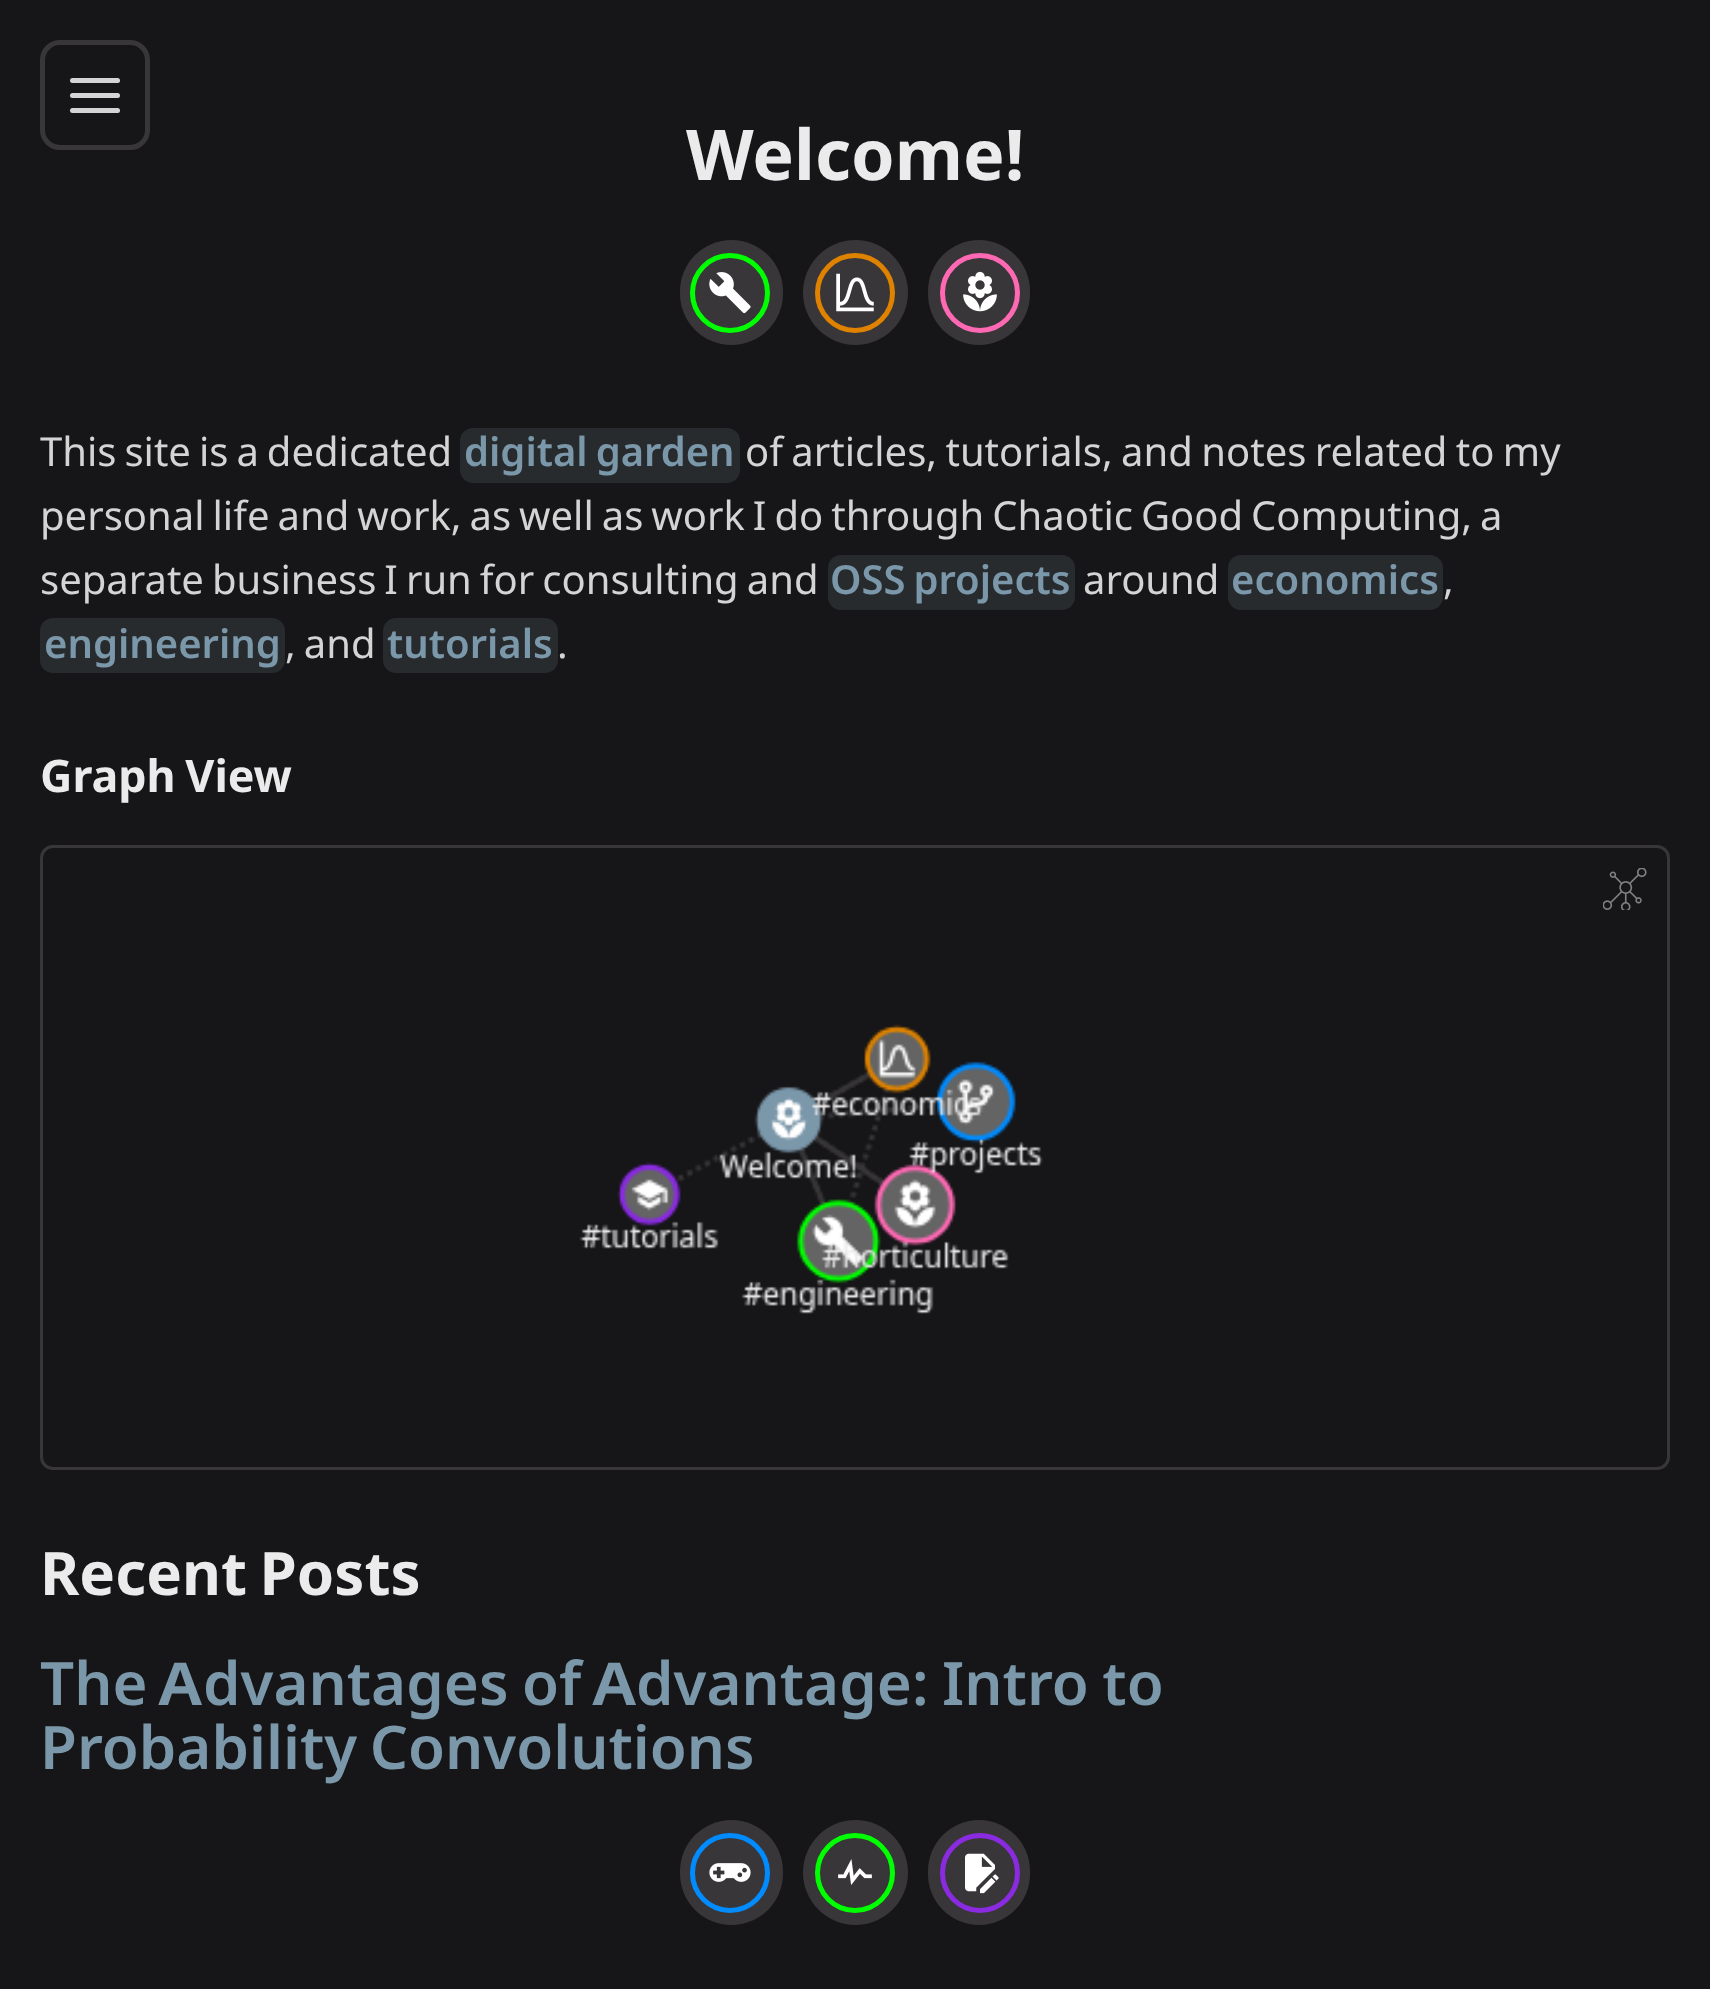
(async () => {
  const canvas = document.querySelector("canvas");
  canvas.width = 1710;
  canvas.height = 1989;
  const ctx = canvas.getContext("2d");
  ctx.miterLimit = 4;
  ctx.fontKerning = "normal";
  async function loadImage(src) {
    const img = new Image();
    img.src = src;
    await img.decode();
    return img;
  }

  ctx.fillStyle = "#161618";
  ctx.fillRect(0, 0, 1710, 1989);
  ctx.beginPath();
  ctx.roundRect(42.5, 42.5, 105, 105, 17.5);
  ctx.strokeStyle = "#393639";
  ctx.lineWidth = 5;
  ctx.stroke();
  ctx.fillStyle = "#d4d4d4";
  ctx.beginPath();
  ctx.roundRect(70, 78, 50, 5, 2.5);
  ctx.fill();
  ctx.beginPath();
  ctx.roundRect(70, 93, 50, 5, 2.5);
  ctx.fill();
  ctx.beginPath();
  ctx.roundRect(70, 108, 50, 5, 2.5);
  ctx.fill();
  ctx.fillStyle = "#393639";
  ctx.beginPath();
  ctx.roundRect(680, 240, 103, 105, 51.5);
  ctx.fill();
  ctx.beginPath();
  ctx.arc(730, 293, 37.5, 0, Math.PI * 2);
  ctx.strokeStyle = "#00ff00";
  ctx.stroke();
  ctx.drawImage(await loadImage("img/1.png"), 709, 272, 42, 42);
  ctx.beginPath();
  ctx.arc(855.5, 292.5, 52.5, 0, Math.PI * 2);
  ctx.fill();
  ctx.beginPath();
  ctx.arc(855, 293, 37.5, 0, Math.PI * 2);
  ctx.strokeStyle = "#de8200";
  ctx.stroke();
  ctx.drawImage(await loadImage("img/2.png"), 836, 273, 38, 39);
  ctx.beginPath();
  ctx.roundRect(928, 240, 102, 105, 51);
  ctx.fill();
  ctx.beginPath();
  ctx.arc(980, 293, 37.5, 0, Math.PI * 2);
  ctx.strokeStyle = "#ff69b4";
  ctx.stroke();
  ctx.drawImage(await loadImage("img/3.png"), 963, 271, 34, 41);
  ctx.fillStyle = "#282b2e";
  ctx.beginPath();
  ctx.roundRect(460, 428, 280, 55, 13);
  ctx.fill();
  ctx.beginPath();
  ctx.roundRect(828, 555, 247, 55, 13);
  ctx.fill();
  ctx.beginPath();
  ctx.roundRect(1228, 555, 215, 55, 13);
  ctx.fill();
  ctx.beginPath();
  ctx.roundRect(40, 618, 245, 55, 13);
  ctx.fill();
  ctx.beginPath();
  ctx.roundRect(383, 618, 175, 55, 13);
  ctx.fill();
  ctx.beginPath();
  ctx.roundRect(41.5, 846.5, 1627, 622, 11.5);
  ctx.strokeStyle = "#393639";
  ctx.lineWidth = 3;
  ctx.stroke();
  ctx.drawImage(await loadImage("img/4.png"), 1603, 868, 44, 42);
  ctx.drawImage(await loadImage("img/5.png"), 579, 1024, 464, 290);
  ctx.fillStyle = "#393639";
  ctx.beginPath();
  ctx.roundRect(680, 1820, 103, 105, 51.5);
  ctx.fill();
  ctx.beginPath();
  ctx.arc(730, 1873, 37.5, 0, Math.PI * 2);
  ctx.strokeStyle = "#008cff";
  ctx.lineWidth = 5;
  ctx.stroke();
  ctx.drawImage(await loadImage("img/6.png"), 709, 1863, 42, 19);
  ctx.beginPath();
  ctx.arc(855.5, 1872.5, 52.5, 0, Math.PI * 2);
  ctx.fill();
  ctx.beginPath();
  ctx.arc(855, 1873, 37.5, 0, Math.PI * 2);
  ctx.strokeStyle = "#00ff00";
  ctx.stroke();
  ctx.drawImage(await loadImage("img/7.png"), 838, 1859, 34, 26);
  ctx.beginPath();
  ctx.roundRect(928, 1820, 102, 105, 51);
  ctx.fill();
  ctx.beginPath();
  ctx.arc(980, 1873, 37.5, 0, Math.PI * 2);
  ctx.strokeStyle = "#8a2be2";
  ctx.stroke();
  ctx.drawImage(await loadImage("img/8.png"), 965, 1853, 34, 41);
  ctx.font = "bold 70px Noto Sans";
  ctx.fillStyle = "#ebebec";
  ctx.fillText("Welcome!", 686, 180);
  ctx.wordSpacing = "-2.4px";
  ctx.font = "40px Noto Sans";
  ctx.fillStyle = "#d4d4d4";
  ctx.fillText("This site is a dedicated", 40, 466);
  ctx.font = "600 40px Noto Sans";
  ctx.fillStyle = "#7b97aa";
  ctx.fillText("digital garden", 464, 466);
  ctx.wordSpacing = "-2px";
  ctx.font = "40px Noto Sans";
  ctx.fillStyle = "#d4d4d4";
  ctx.fillText("of articles, tutorials, and notes related to my", 745, 466);
  ctx.wordSpacing = "-2.4px";
  ctx.fillText("personal life and work, as well as work I do through Chaotic Good Computing, a", 40, 530);
  ctx.fillText("separate business I run for consulting and", 40, 594);
  ctx.font = "600 40px Noto Sans";
  ctx.fillStyle = "#7b97aa";
  ctx.fillText("OSS projects", 830, 594);
  ctx.wordSpacing = "0px";
  ctx.font = "40px Noto Sans";
  ctx.fillStyle = "#d4d4d4";
  ctx.fillText("around", 1083, 594);
  ctx.font = "600 40px Noto Sans";
  ctx.fillStyle = "#7b97aa";
  ctx.fillText("economics", 1231, 594);
  ctx.font = "40px Noto Sans";
  ctx.fillStyle = "#d4d4d4";
  ctx.fillText(",", 1443, 594);
  ctx.font = "600 40px Noto Sans";
  ctx.fillStyle = "#7b97aa";
  ctx.fillText("engineering", 44, 658);
  ctx.wordSpacing = "-2.4px";
  ctx.font = "40px Noto Sans";
  ctx.fillStyle = "#d4d4d4";
  ctx.fillText(", and", 285, 658);
  ctx.wordSpacing = "0px";
  ctx.font = "600 40px Noto Sans";
  ctx.fillStyle = "#7b97aa";
  ctx.fillText("tutorials", 387, 658);
  ctx.font = "40px Noto Sans";
  ctx.fillStyle = "#d4d4d4";
  ctx.fillText(".", 557, 658);
  ctx.wordSpacing = "-2px";
  ctx.font = "bold 44.75px Noto Sans";
  ctx.fillStyle = "#ebebec";
  ctx.fillText("Graph View", 40, 792);
  ctx.wordSpacing = "-3px";
  ctx.font = "bold 60px Noto Sans";
  ctx.fillText("Recent Posts", 40, 1595);
  ctx.wordSpacing = "0px";
  ctx.font = "600 60px Noto Sans";
  ctx.fillStyle = "#7b97aa";
  ctx.fillText("The", 40, 1705);
  ctx.font = "bold 60px Schibsted Grotesk";
  ctx.fillText("A", 158, 1705);
  ctx.wordSpacing = "-2px";
  ctx.font = "600 60px Noto Sans";
  ctx.fillText("dvantages of", 203, 1705);
  ctx.wordSpacing = "0px";
  ctx.font = "bold 60px Schibsted Grotesk";
  ctx.fillText("A", 592, 1705);
  ctx.wordSpacing = "-2px";
  ctx.font = "600 60px Noto Sans";
  ctx.fillText("dvantage: Intro to", 636, 1705);
  ctx.wordSpacing = "-3px";
  ctx.fillText("Probability Convolutions", 40, 1769);
})();
